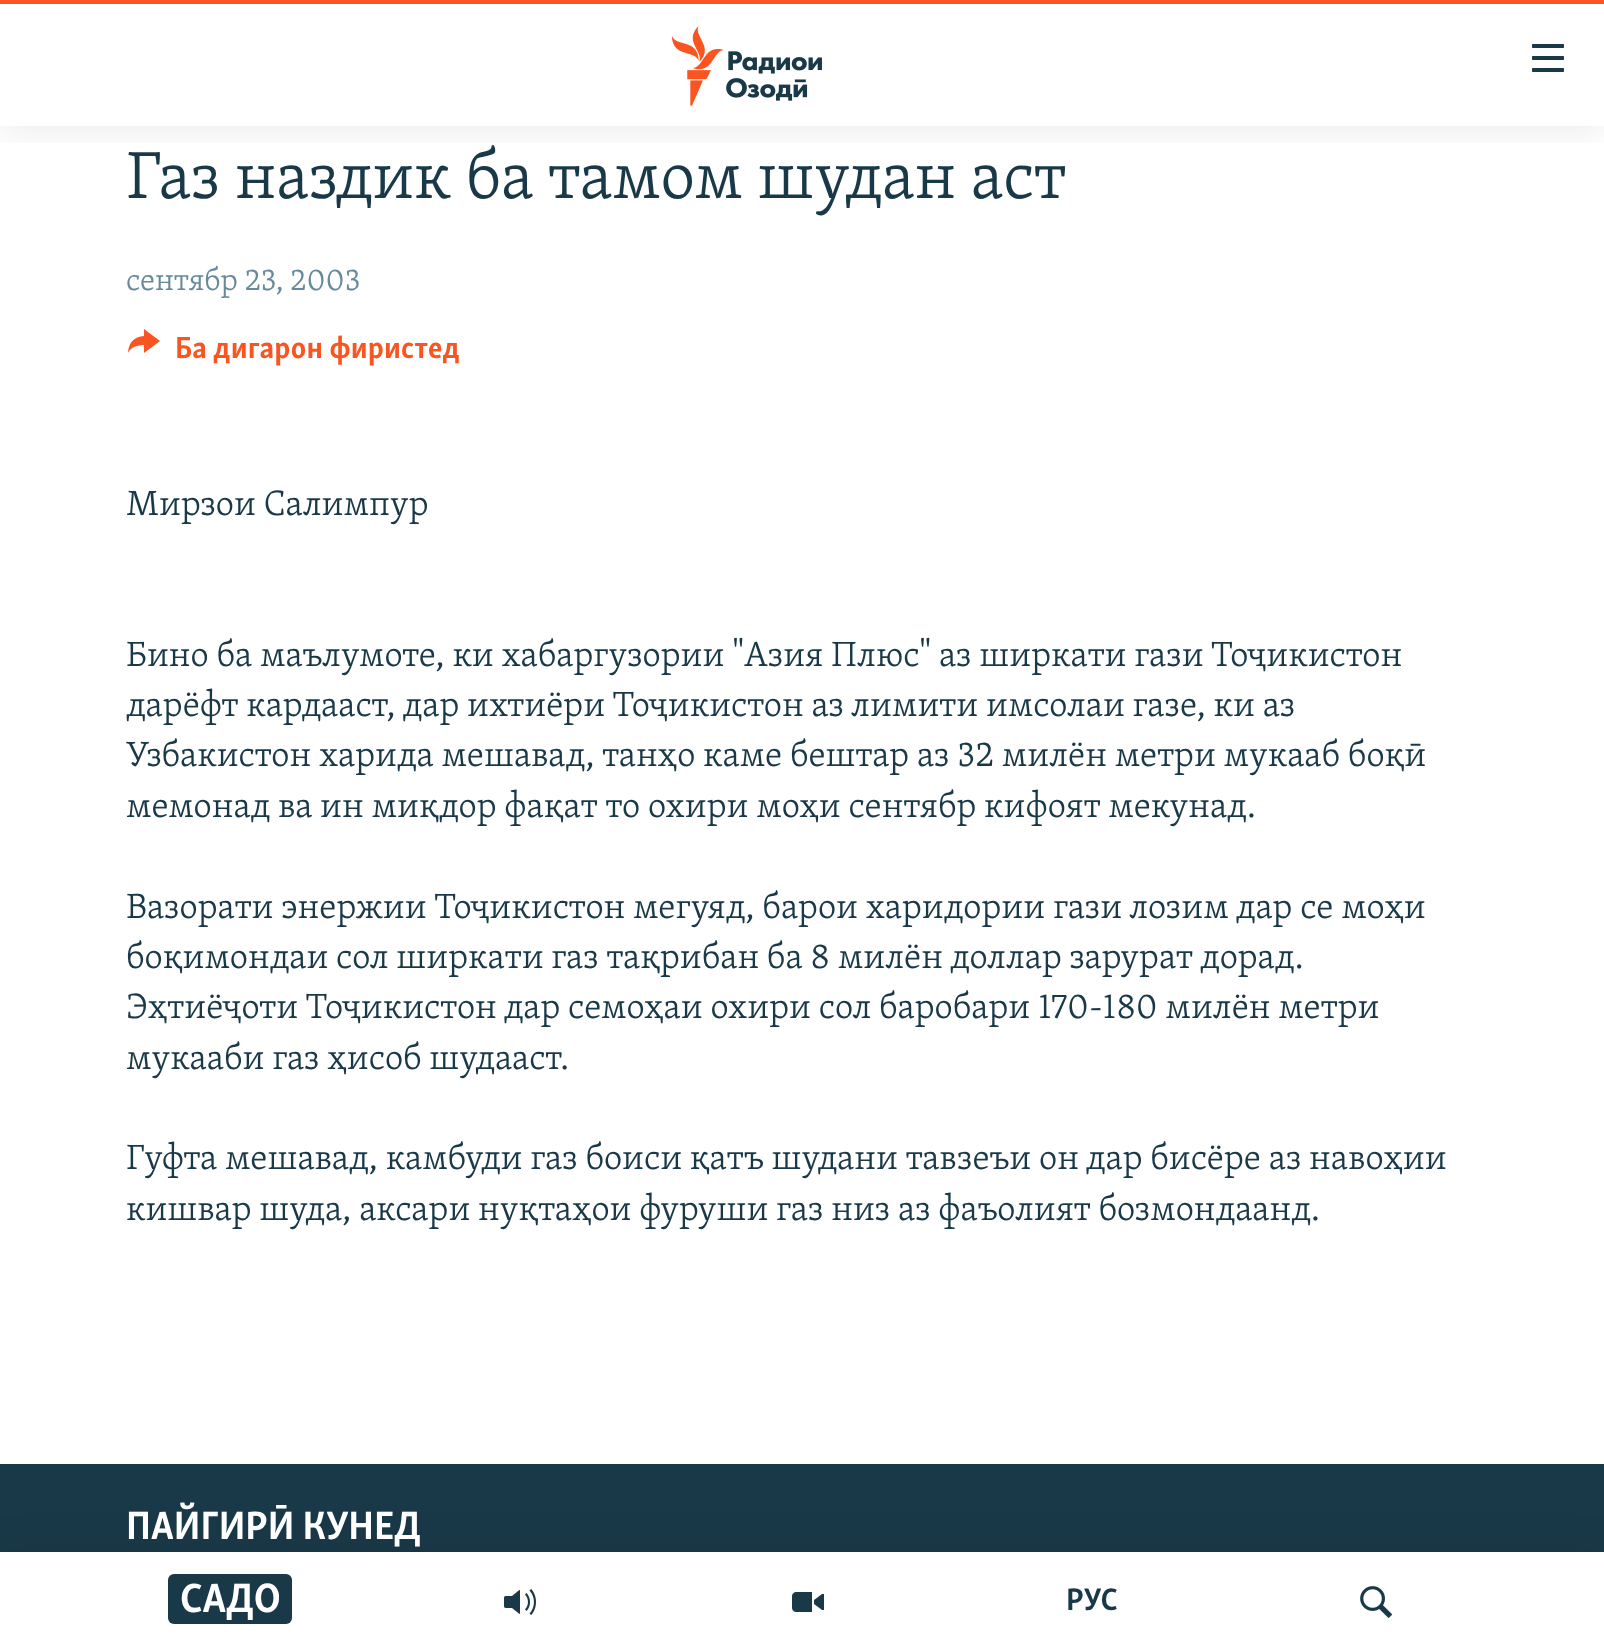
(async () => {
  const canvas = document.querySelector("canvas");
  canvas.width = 1604;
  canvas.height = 1652;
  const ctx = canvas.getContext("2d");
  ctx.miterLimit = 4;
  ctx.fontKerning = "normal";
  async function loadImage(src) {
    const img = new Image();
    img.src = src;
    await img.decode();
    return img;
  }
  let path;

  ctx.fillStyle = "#ffffff";
  ctx.fillRect(0, 0, 1604, 1652);
  ctx.fillStyle = "#fa5420";
  path = new Path2D("M128 353C128.5 343 134 336.5 144 336V329L160 341L144 353V345C138 345 130.5 347 128 353Z");
  ctx.fill(path);
  ctx.fillStyle = "#1a3948";
  ctx.fillRect(0, 1464, 1604, 88);
  ctx.save();
  ctx.beginPath();
  ctx.rect(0, 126, 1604, 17);
  ctx.clip();
  ctx.fillStyle = "rgba(0, 0, 0, 0.1)";
  ctx.filter = "blur(20px)";
  ctx.beginPath();
  ctx.rect(0, 0, 1604, 126);
  ctx.fill();
  ctx.filter = "none";
  ctx.restore();
  ctx.fillStyle = "#fa5420";
  ctx.fillRect(0, 0, 1604, 4);
  ctx.drawImage(await loadImage("img/1.png"), 672, 26, 150, 80);
  ctx.drawImage(await loadImage("img/2.png"), 1532, 44, 32, 28);
  ctx.fillStyle = "rgba(0, 0, 0, 0.1)";
  ctx.filter = "blur(20px)";
  ctx.beginPath();
  ctx.rect(0, 1552, 1604, 100);
  ctx.fill();
  ctx.filter = "none";
  ctx.fillStyle = "#ffffff";
  ctx.fillRect(0, 1552, 1604, 100);
  ctx.fillStyle = "#1a3948";
  ctx.beginPath();
  ctx.roundRect(168, 1574, 124, 50, 6);
  ctx.fill();
  ctx.drawImage(await loadImage("img/3.png"), 504, 1589, 32, 26);
  ctx.drawImage(await loadImage("img/4.png"), 792, 1592, 32, 20);
  ctx.drawImage(await loadImage("img/5.png"), 1360, 1586, 32, 32);
  ctx.font = "300 68.4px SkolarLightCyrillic";
  ctx.fillText("Газ наздик ба тамом шудан аст", 126, 198);
  ctx.font = "300 31.5px SkolarLightCyrillic";
  ctx.fillStyle = "#678a9b";
  ctx.fillText("сентябр 23, 2003", 126, 290);
  ctx.font = "bold 31.5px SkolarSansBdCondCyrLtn";
  ctx.fillStyle = "#fa5420";
  ctx.fillText("Ба дигарон фиристед", 175, 358);
  ctx.font = "300 36px SkolarLightCyrillic";
  ctx.fillStyle = "#1a3948";
  for (const [text, x, y] of [
    ["Мирзои Салимпур", 126, 515],
    ["Бино ба маълумоте, ки хабаргузории \"Азия Плюс\" аз ширкати гази Тоҷикистон", 126, 666],
    ["дарёфт кардааст, дар ихтиёри Тоҷикистон аз лимити имсолаи газе, ки аз", 126, 716],
    ["Узбакистон харида мешавад, танҳо каме бештар аз 32 милён метри мукааб боқӣ", 126, 766],
    ["мемонад ва ин миқдор фақат то охири моҳи сентябр кифоят мекунад.", 126, 817],
    ["Вазорати энержии Тоҷикистон мегуяд, барои харидории гази лозим дар се моҳи", 126, 918],
    ["боқимондаи сол ширкати газ тақрибан ба 8 милён доллар зарурат дорад.", 126, 968],
    ["Эҳтиёҷоти Тоҷикистон дар семоҳаи охири сол баробари 170-180 милён метри", 126, 1018],
    ["мукааби газ ҳисоб шудааст.", 126, 1069],
    ["Гуфта мешавад, камбуди газ боиси қатъ шудани тавзеъи он дар бисёре аз навоҳии", 126, 1169],
    ["кишвар шуда, аксари нуқтаҳои фуруши газ низ аз фаъолият бозмондаанд.", 126, 1220],
  ]) {
    ctx.fillText(text, x, y);
  }
  ctx.font = "bold 40.5px SkolarSansBdCondCyrLtn";
  ctx.fillStyle = "#ffffff";
  ctx.fillText("ПАЙГИРӢ КУНЕД", 126, 1539);
  ctx.font = "bold 42px SkolarSansBdCondCyrLtn";
  ctx.fillText("САДО", 180, 1612);
  ctx.font = "bold 32px SkolarSansBdCondCyrLtn";
  ctx.fillStyle = "#1a3948";
  ctx.fillText("РУС", 1066, 1610);
})();
